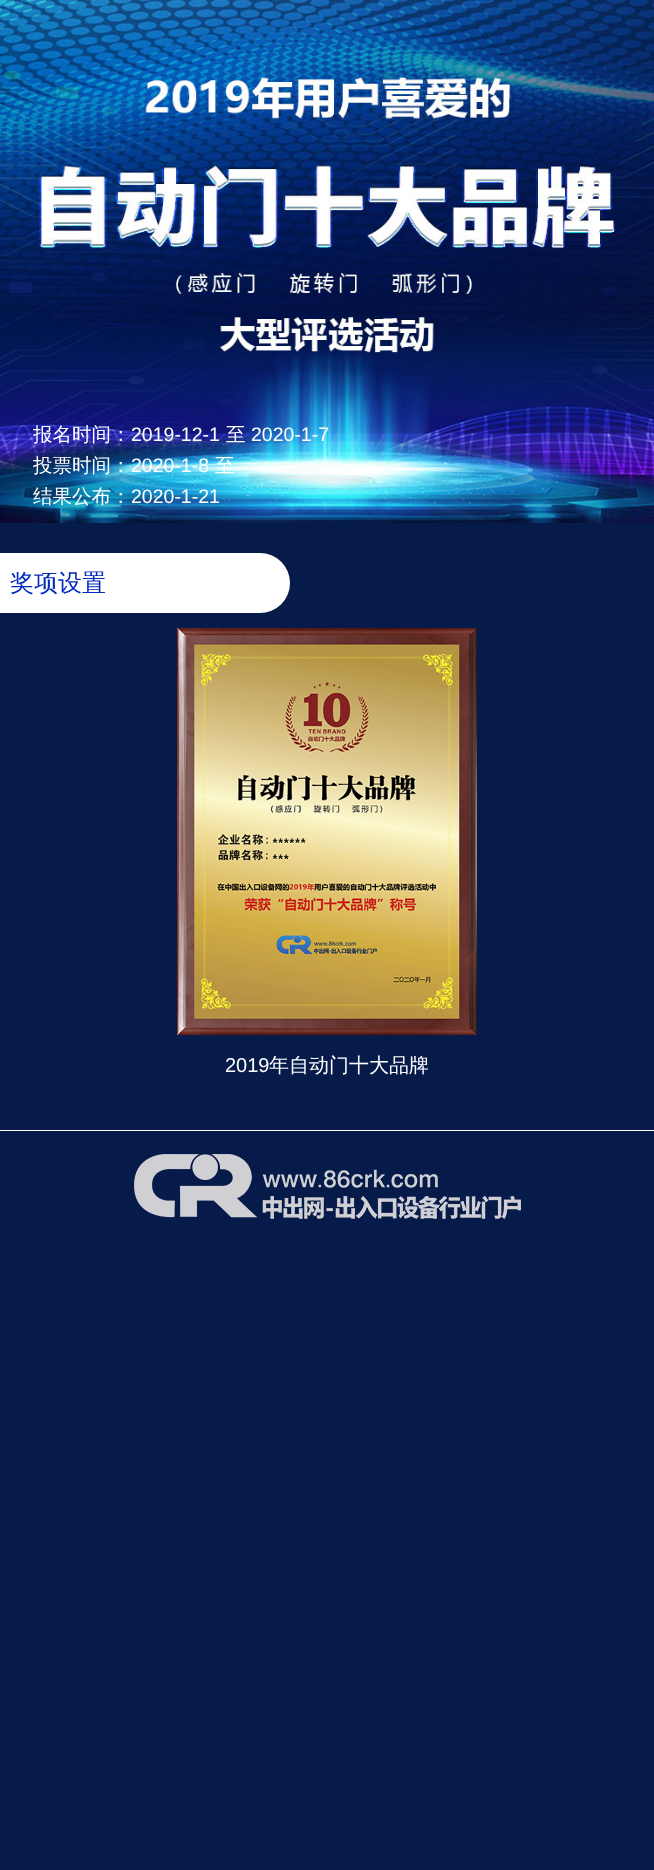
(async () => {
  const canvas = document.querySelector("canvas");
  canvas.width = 654;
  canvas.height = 1870;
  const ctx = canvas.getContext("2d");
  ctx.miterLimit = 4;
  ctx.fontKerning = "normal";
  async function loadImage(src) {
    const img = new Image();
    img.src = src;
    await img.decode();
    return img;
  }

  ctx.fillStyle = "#061b49";
  ctx.fillRect(0, 0, 654, 1870);
  ctx.drawImage(await loadImage("img/1.png"), 0, 0, 654, 523);
  ctx.fillStyle = "#ffffff";
  ctx.beginPath();
  ctx.roundRect(0, 553, 290, 60, [0, 30, 30, 0]);
  ctx.fill();
  ctx.drawImage(await loadImage("img/2.png"), 177, 628, 300, 407);
  ctx.fillRect(0, 1130, 654, 1);
  ctx.drawImage(await loadImage("img/3.png"), 134, 1154, 387, 65);
  ctx.font = "500 19.5px WenQuanYi Zen Hei";
  ctx.fillText("报名时间：", 33, 441);
  ctx.font = "19.5px Liberation Sans";
  ctx.fillText("2019-12-1", 131, 441);
  ctx.font = "500 19.5px WenQuanYi Zen Hei";
  ctx.fillText("至", 226, 441);
  ctx.font = "19.5px Liberation Sans";
  ctx.fillText("2020-1-7", 251, 441);
  ctx.font = "500 19.5px WenQuanYi Zen Hei";
  ctx.fillText("投票时间：", 33, 472);
  ctx.font = "19.5px Liberation Sans";
  ctx.fillText("2020-1-8", 131, 472);
  ctx.font = "500 19.5px WenQuanYi Zen Hei";
  ctx.fillText("至", 215, 472);
  ctx.fillText("结果公布：", 33, 503);
  ctx.font = "19.5px Liberation Sans";
  ctx.fillText("2020-1-21", 131, 503);
  ctx.font = "500 24px WenQuanYi Zen Hei";
  ctx.fillStyle = "#0129be";
  ctx.fillText("奖项设置", 10, 591);
  ctx.font = "20px Liberation Sans";
  ctx.fillStyle = "#ffffff";
  ctx.fillText("2019", 225, 1072);
  ctx.font = "500 20px WenQuanYi Zen Hei";
  ctx.fillText("年自动门十大品牌", 269, 1072);
})();
